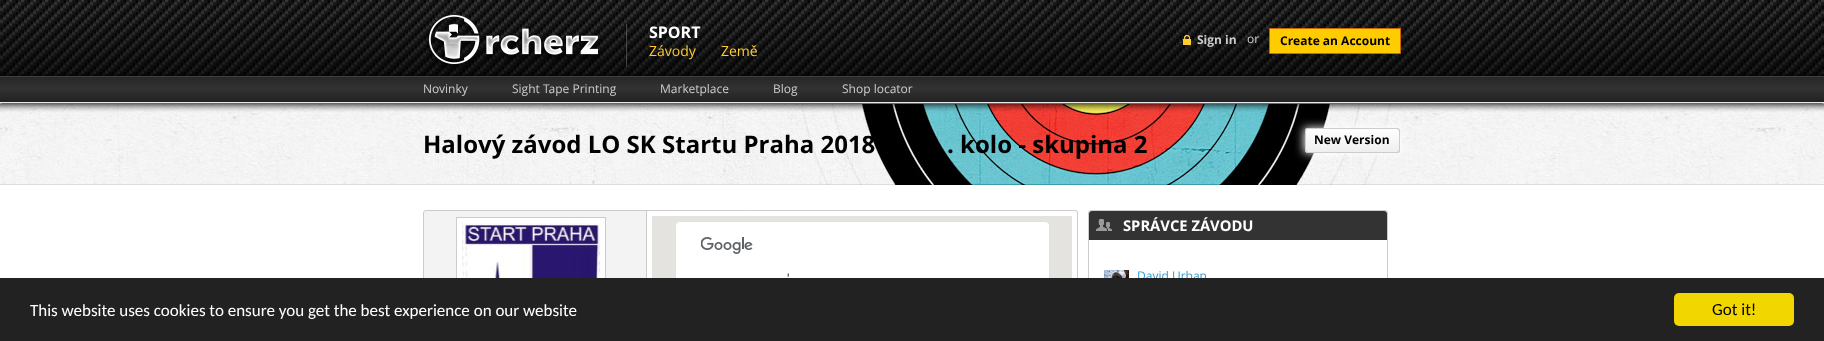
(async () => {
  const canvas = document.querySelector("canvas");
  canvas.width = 1824;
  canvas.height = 341;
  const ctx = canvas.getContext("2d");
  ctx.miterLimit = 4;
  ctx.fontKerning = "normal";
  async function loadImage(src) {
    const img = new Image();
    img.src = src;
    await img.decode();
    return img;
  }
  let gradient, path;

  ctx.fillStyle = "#ffffff";
  ctx.fillRect(0, 0, 1824, 341);
  ctx.drawImage(await loadImage("img/1.png"), 0, 0, 1824, 76);
  ctx.drawImage(await loadImage("img/2.png"), 425, 15, 176, 56);
  ctx.drawImage(await loadImage("img/3.png"), 625, 24, 2, 43);
  ctx.drawImage(await loadImage("img/4.png"), 1183, 35, 8, 10);
  ctx.fillStyle = "#ffcc00";
  ctx.beginPath();
  ctx.rect(1269.5, 28.5, 131, 25);
  ctx.fill();
  ctx.strokeStyle = "#cc6600";
  ctx.stroke();
  ctx.fillStyle = "#666666";
  ctx.filter = "blur(1.5px)";
  ctx.beginPath();
  ctx.rect(0, 81, 1824, 27);
  ctx.fill();
  ctx.filter = "none";
  gradient = ctx.createLinearGradient(912, 77, 912, 102);
  gradient.addColorStop(0, "#272727");
  gradient.addColorStop(0.46, "#323232");
  gradient.addColorStop(1, "#222222");
  ctx.fillStyle = gradient;
  ctx.fillRect(0, 77, 1824, 25);
  ctx.fillStyle = "#404040";
  ctx.fillRect(0, 76, 1824, 1);
  ctx.fillStyle = "#eaeaea";
  ctx.fillRect(0, 102, 1824, 1);
  ctx.drawImage(await loadImage("img/5.png"), 0, 104, 1824, 81);
  ctx.drawImage(await loadImage("img/6.png"), 423, 104, 978, 81);
  ctx.fillStyle = "#ffffff";
  ctx.filter = "blur(5px)";
  ctx.beginPath();
  ctx.rect(1304, 128, 97, 25);
  ctx.fill();
  ctx.filter = "none";
  ctx.drawImage(await loadImage("img/7.png"), 1305, 128, 4, 25);
  ctx.drawImage(await loadImage("img/8.png"), 1309, 128, 86, 25);
  ctx.drawImage(await loadImage("img/9.png"), 1395, 128, 5, 25);
  ctx.fillStyle = "#f3f3f3";
  ctx.beginPath();
  ctx.roundRect(423.5, 210.5, 654, 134, 2.5);
  ctx.fill();
  ctx.strokeStyle = "#cccccc";
  ctx.stroke();
  ctx.fillStyle = "#ffffff";
  ctx.fillRect(457, 218, 148, 60);
  ctx.strokeRect(456.5, 217.5, 149, 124);
  ctx.drawImage(await loadImage("img/10.png"), 462, 223, 138, 55);
  path = new Path2D("M646 211H1074C1075.5 211 1077 212.5 1077 214V341C1077 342.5 1075.5 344 1074 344H646Z");
  ctx.fill(path);
  ctx.fillStyle = "#cccccc";
  ctx.fillRect(646, 211, 1, 67);
  ctx.fillStyle = "#e5e3df";
  ctx.fillRect(652, 216, 420, 62);
  ctx.fillStyle = "#ffffff";
  ctx.beginPath();
  ctx.roundRect(675, 221, 375, 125, 5);
  ctx.fill();
  ctx.beginPath();
  ctx.roundRect(675.5, 221.5, 374, 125, 4.5);
  ctx.strokeStyle = "rgba(0, 0, 0, 0.12)";
  ctx.stroke();
  ctx.drawImage(await loadImage("img/11.png"), 701, 237, 52, 17);
  ctx.beginPath();
  ctx.roundRect(1088.5, 210.5, 299, 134, 2.5);
  ctx.strokeStyle = "#cccccc";
  ctx.stroke();
  ctx.fillStyle = "#333333";
  ctx.beginPath();
  ctx.roundRect(1089, 211, 298, 29, [3, 3, 0, 0]);
  ctx.fill();
  ctx.drawImage(await loadImage("img/12.png"), 1096, 219, 16, 12);
  ctx.drawImage(await loadImage("img/13.png"), 1104, 270, 25, 8);
  ctx.font = "bold 16px Open Sans";
  ctx.fillStyle = "#ffffff";
  ctx.fillText("SPORT", 649, 38);
  ctx.font = "14px Open Sans";
  ctx.fillStyle = "#ffcc33";
  ctx.fillText("Závody", 649, 56);
  ctx.fillText("Země", 721, 56);
  ctx.font = "bold 12px Open Sans";
  ctx.fillStyle = "#cccccc";
  ctx.fillText("Sign in", 1197, 44);
  ctx.font = "12px Open Sans";
  ctx.fillText("or", 1247, 43);
  ctx.font = "bold 12px Open Sans";
  ctx.fillStyle = "#000000";
  ctx.fillText("Create an Account", 1280, 45);
  ctx.font = "12px Open Sans";
  ctx.fillStyle = "#cccccc";
  for (const [text, x, y] of [
    ["Novinky", 423, 93],
    ["Sight Tape Printing", 512, 93],
    ["Marketplace", 660, 93],
    ["Blog", 773, 93],
    ["Shop locator", 842, 93],
  ]) {
    ctx.fillText(text, x, y);
  }
  ctx.font = "bold 24px Open Sans";
  ctx.fillStyle = "#000000";
  ctx.fillText("Halový závod LO SK Startu Praha 2018", 423, 153);
  ctx.fillText(". kolo - skupina 2", 947, 153);
  ctx.font = "bold 12px Open Sans";
  ctx.fillText("New Version", 1314, 144);
  ctx.font = "14px Roboto";
  ctx.fillStyle = "#212121";
  ctx.fillText("'", 787, 284);
  ctx.font = "bold 14.75px Open Sans";
  ctx.fillStyle = "#ffffff";
  ctx.fillText("SPRÁVCE ZÁVODU", 1123, 231);
  ctx.font = "12px Open Sans";
  ctx.fillStyle = "#3399cc";
  ctx.fillText("David Urban", 1137, 280);
  ctx.fillStyle = "#222222";
  ctx.fillRect(0, 278, 1824, 63);
  ctx.font = "17px Carlito";
  ctx.fillStyle = "#ffffff";
  ctx.fillText("This website uses cookies to ensure you get the best experience on our website", 30, 316);
  ctx.fillStyle = "#f1d600";
  ctx.beginPath();
  ctx.roundRect(1674, 293, 120, 33, 5);
  ctx.fill();
  ctx.fillStyle = "#000000";
  ctx.fillText("Got it!", 1712, 315);
})();
